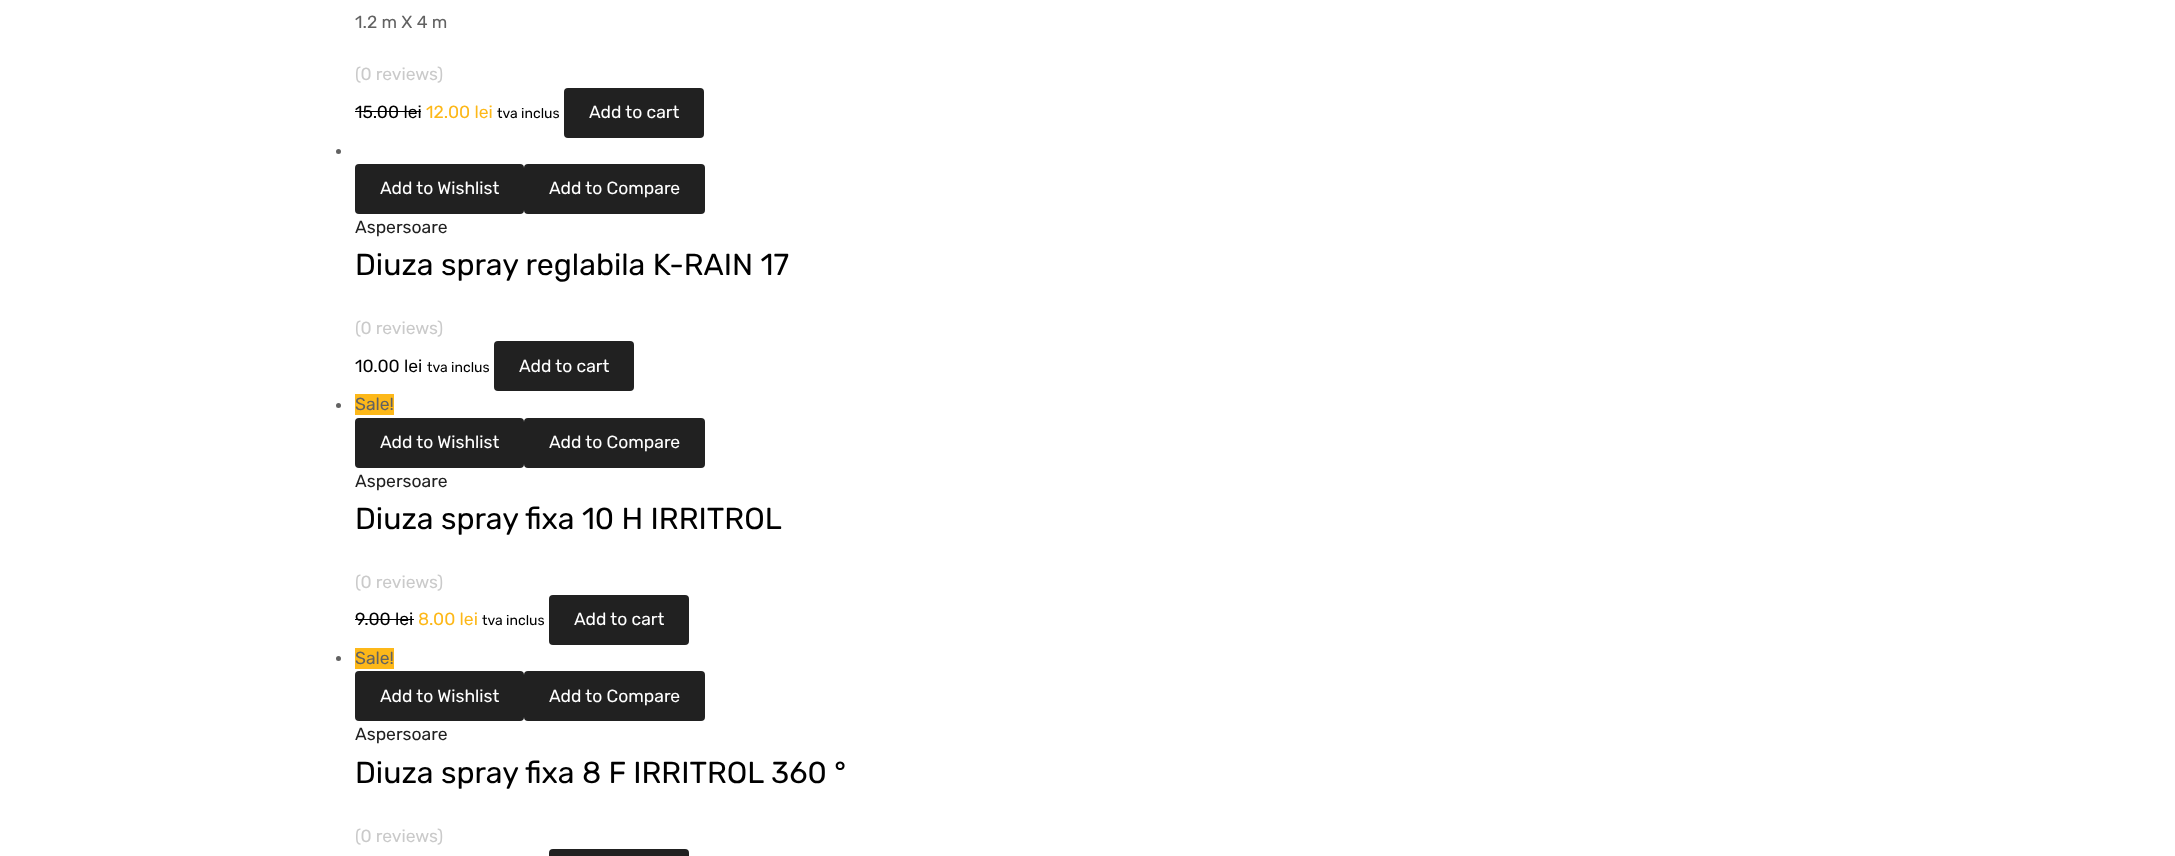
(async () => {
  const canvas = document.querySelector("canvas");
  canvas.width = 2175;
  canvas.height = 856;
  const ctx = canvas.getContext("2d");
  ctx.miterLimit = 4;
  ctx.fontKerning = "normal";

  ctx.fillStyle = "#ffffff";
  ctx.fillRect(0, 0, 2175, 856);
  ctx.fillStyle = "#000000";
  ctx.fillRect(355, 111, 66, 1);
  ctx.fillStyle = "#212121";
  ctx.beginPath();
  ctx.roundRect(564, 88, 140, 50, 4);
  ctx.fill();
  ctx.fillStyle = "#626262";
  ctx.beginPath();
  ctx.arc(338.5, 151.5, 2.5, 0, Math.PI * 2);
  ctx.fill();
  ctx.fillStyle = "#212121";
  ctx.beginPath();
  ctx.roundRect(355, 164, 169, 50, 4);
  ctx.fill();
  ctx.beginPath();
  ctx.roundRect(524, 164, 181, 50, 4);
  ctx.fill();
  ctx.beginPath();
  ctx.roundRect(494, 341, 140, 50, 4);
  ctx.fill();
  ctx.fillStyle = "#626262";
  ctx.beginPath();
  ctx.arc(338.5, 405.5, 2.5, 0, Math.PI * 2);
  ctx.fill();
  ctx.fillStyle = "#fdb819";
  ctx.fillRect(355, 394, 39, 21);
  ctx.fillStyle = "#212121";
  ctx.beginPath();
  ctx.roundRect(355, 418, 169, 50, 4);
  ctx.fill();
  ctx.beginPath();
  ctx.roundRect(524, 418, 181, 50, 4);
  ctx.fill();
  ctx.fillStyle = "#000000";
  ctx.fillRect(355, 619, 59, 1);
  ctx.fillStyle = "#212121";
  ctx.beginPath();
  ctx.roundRect(549, 595, 140, 50, 4);
  ctx.fill();
  ctx.fillStyle = "#626262";
  ctx.beginPath();
  ctx.arc(338.5, 658.5, 2.5, 0, Math.PI * 2);
  ctx.fill();
  ctx.fillStyle = "#fdb819";
  ctx.fillRect(355, 648, 39, 21);
  ctx.fillStyle = "#212121";
  ctx.beginPath();
  ctx.roundRect(355, 671, 169, 50, 4);
  ctx.fill();
  ctx.beginPath();
  ctx.roundRect(524, 671, 181, 50, 4);
  ctx.fill();
  ctx.beginPath();
  ctx.roundRect(549, 849, 140, 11, 4);
  ctx.fill();
  ctx.font = "300 17.5px Rubik";
  ctx.fillStyle = "#626262";
  ctx.fillText("1.2 m X 4 m", 355, 28);
  ctx.fillStyle = "#cacaca";
  ctx.fillText("(0 reviews)", 355, 80);
  ctx.fillStyle = "#000000";
  ctx.fillText("15.00 lei", 355, 118);
  ctx.fillStyle = "#fdb819";
  ctx.fillText("12.00 lei", 426, 118);
  ctx.font = "300 14px Rubik";
  ctx.fillStyle = "#000000";
  ctx.fillText("tva inclus", 497, 118);
  ctx.font = "300 17.5px Rubik";
  ctx.fillStyle = "#ffffff";
  for (const [text, x, y] of [
    ["Add to cart", 589, 118],
    ["Add to Wishlist", 380, 194],
    ["Add to Compare", 549, 194],
  ]) {
    ctx.fillText(text, x, y);
  }
  ctx.fillStyle = "#212121";
  ctx.fillText("Aspersoare", 355, 233);
  ctx.font = "300 30.3px Rubik";
  ctx.fillStyle = "#000000";
  ctx.fillText("Diuza spray reglabila K-RAIN 17", 355, 275);
  ctx.font = "300 17.5px Rubik";
  ctx.fillStyle = "#cacaca";
  ctx.fillText("(0 reviews)", 355, 334);
  ctx.fillStyle = "#000000";
  ctx.fillText("10.00 lei", 355, 372);
  ctx.font = "300 14px Rubik";
  ctx.fillText("tva inclus", 427, 372);
  ctx.font = "300 17.5px Rubik";
  ctx.fillStyle = "#ffffff";
  ctx.fillText("Add to cart", 519, 372);
  ctx.fillStyle = "#626262";
  ctx.fillText("Sale!", 355, 410);
  ctx.fillStyle = "#ffffff";
  ctx.fillText("Add to Wishlist", 380, 448);
  ctx.fillText("Add to Compare", 549, 448);
  ctx.fillStyle = "#212121";
  ctx.fillText("Aspersoare", 355, 487);
  ctx.font = "300 30.3px Rubik";
  ctx.fillStyle = "#000000";
  ctx.fillText("Diuza spray fixa 10 H IRRITROL", 355, 529);
  ctx.font = "300 17.5px Rubik";
  ctx.fillStyle = "#cacaca";
  ctx.fillText("(0 reviews)", 355, 588);
  ctx.fillStyle = "#000000";
  ctx.fillText("9.00 lei", 355, 625);
  ctx.fillStyle = "#fdb819";
  ctx.fillText("8.00 lei", 418, 625);
  ctx.font = "300 14px Rubik";
  ctx.fillStyle = "#000000";
  ctx.fillText("tva inclus", 482, 625);
  ctx.font = "300 17.5px Rubik";
  ctx.fillStyle = "#ffffff";
  ctx.fillText("Add to cart", 574, 625);
  ctx.fillStyle = "#626262";
  ctx.fillText("Sale!", 355, 664);
  ctx.fillStyle = "#ffffff";
  ctx.fillText("Add to Wishlist", 380, 702);
  ctx.fillText("Add to Compare", 549, 702);
  ctx.fillStyle = "#212121";
  ctx.fillText("Aspersoare", 355, 740);
  ctx.font = "300 30.3px Rubik";
  ctx.fillStyle = "#000000";
  ctx.fillText("Diuza spray fixa 8 F IRRITROL 360 °", 355, 783);
  ctx.font = "300 17.5px Rubik";
  ctx.fillStyle = "#cacaca";
  ctx.fillText("(0 reviews)", 355, 842);
})();
